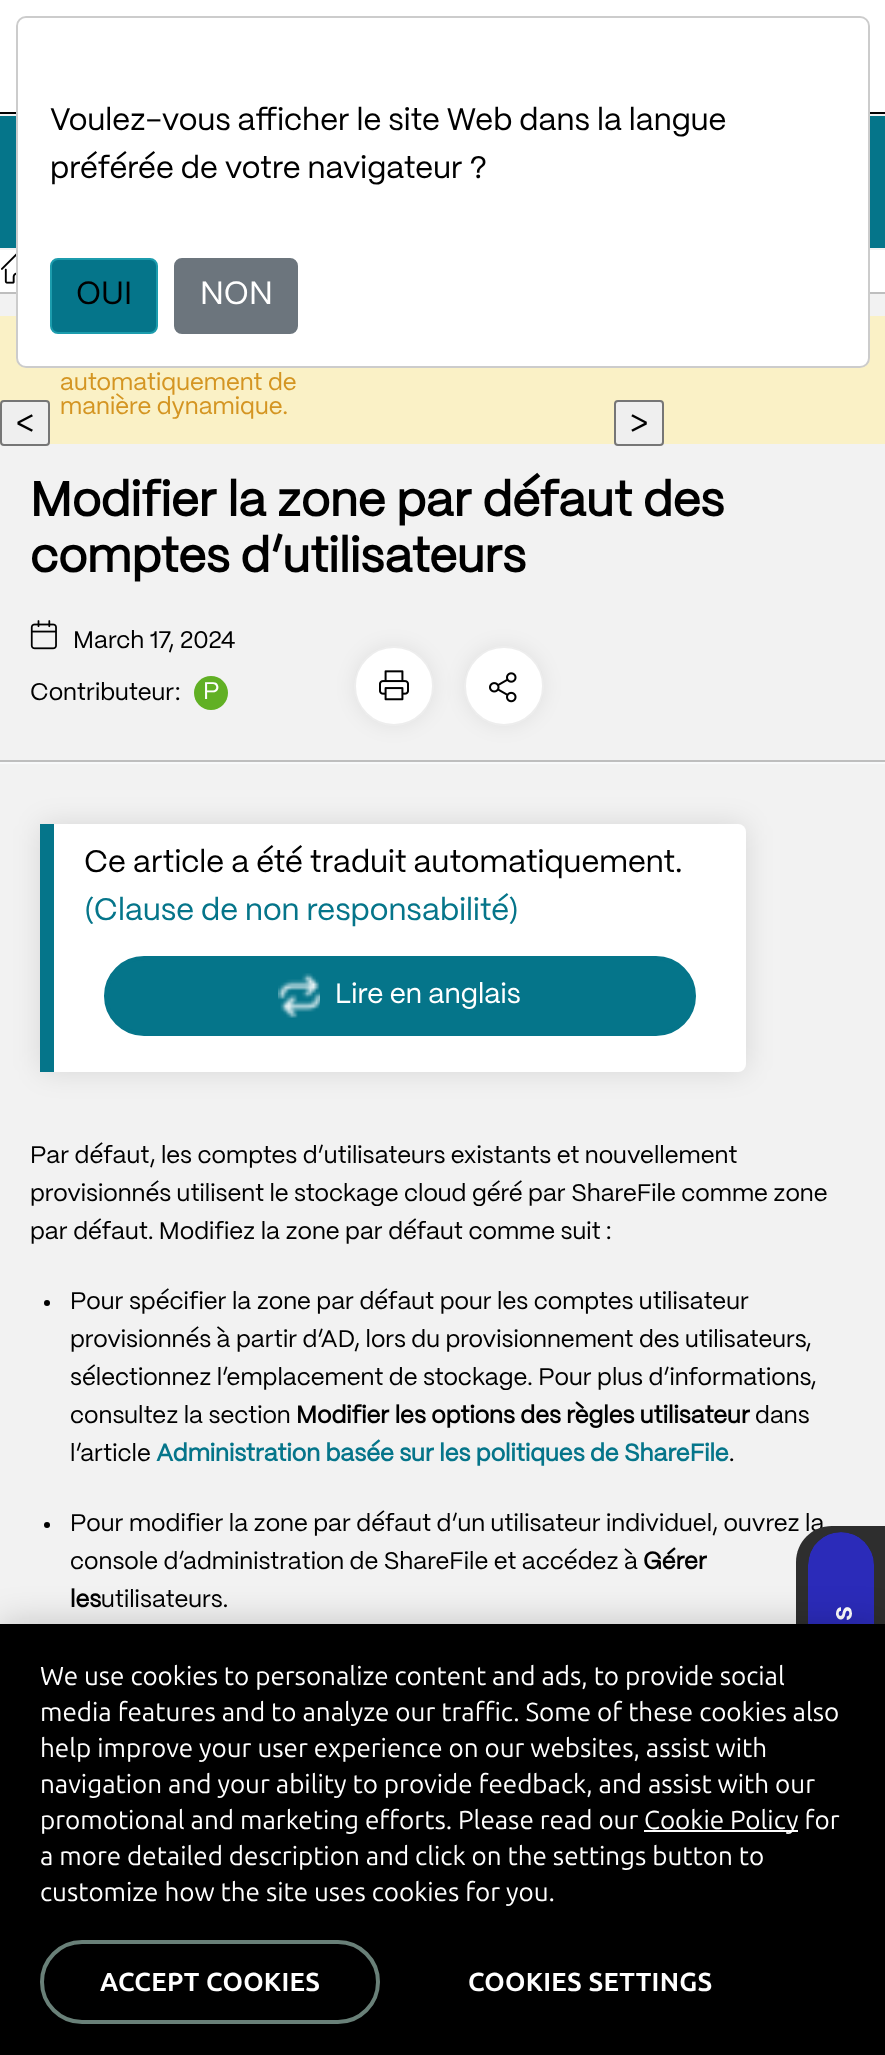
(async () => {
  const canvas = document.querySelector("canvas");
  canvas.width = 885;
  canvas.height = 2055;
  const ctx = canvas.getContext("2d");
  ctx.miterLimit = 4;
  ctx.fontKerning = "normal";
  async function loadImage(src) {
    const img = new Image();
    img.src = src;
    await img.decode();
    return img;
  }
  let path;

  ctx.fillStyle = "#f2f2f2";
  ctx.fillRect(0, 0, 885, 2055);
  for (const [x, y, w, h, color] of [
    [0, 112, 885, 2, "#000000"],
    [0, 0, 885, 112, "#ffffff"],
    [0, 116, 885, 132, "#05758a"],
    [0, 250, 885, 42, "#ffffff"],
    [0, 292, 885, 2, "#bebebe"],
    [0, 316, 885, 128, "#faf1c6"],
  ]) {
    ctx.fillStyle = color;
    ctx.fillRect(x, y, w, h);
  }
  ctx.fillStyle = "#ffffff";
  ctx.beginPath();
  ctx.roundRect(16, 16, 854, 352, 10);
  ctx.fill();
  ctx.beginPath();
  ctx.roundRect(17, 17, 852, 350, 9);
  ctx.strokeStyle = "rgba(0, 0, 0, 0.2)";
  ctx.lineWidth = 2;
  ctx.stroke();
  ctx.beginPath();
  ctx.roundRect(18, 18, 850, 48, [10, 10, 0, 0]);
  ctx.fill();
  ctx.fillStyle = "#05758a";
  ctx.beginPath();
  ctx.roundRect(51, 259, 106, 74, 7);
  ctx.fill();
  ctx.strokeStyle = "#1c9cad";
  ctx.stroke();
  ctx.fillStyle = "#6c757d";
  ctx.beginPath();
  ctx.roundRect(175, 259, 122, 74, 7);
  ctx.fill();
  ctx.strokeStyle = "#6c757d";
  ctx.stroke();
  ctx.drawImage(await loadImage("img/1.png"), 1, 253, 15, 31);
  ctx.fillStyle = "#efefef";
  ctx.beginPath();
  ctx.roundRect(1, 401, 48, 44, 3);
  ctx.fill();
  ctx.strokeStyle = "#767676";
  ctx.stroke();
  ctx.fillStyle = "#bebebe";
  ctx.fillRect(0, 760, 885, 2);
  ctx.drawImage(await loadImage("img/2.png"), 30, 620, 27, 30);
  ctx.fillStyle = "#61b024";
  ctx.beginPath();
  ctx.arc(211, 693, 17, 0, Math.PI * 2);
  ctx.fill();
  ctx.fillStyle = "rgba(0, 0, 0, 0.07)";
  ctx.filter = "blur(10px)";
  ctx.beginPath();
  ctx.roundRect(354, 646, 80, 80, 40);
  ctx.fill();
  ctx.filter = "none";
  ctx.fillStyle = "#ffffff";
  ctx.beginPath();
  ctx.arc(394, 686, 40, 0, Math.PI * 2);
  ctx.fill();
  ctx.beginPath();
  ctx.arc(394, 686, 39, 0, Math.PI * 2);
  ctx.strokeStyle = "rgba(0, 0, 0, 0.07)";
  ctx.stroke();
  ctx.drawImage(await loadImage("img/3.png"), 379, 670, 30, 31);
  ctx.fillStyle = "rgba(0, 0, 0, 0.07)";
  ctx.filter = "blur(10px)";
  ctx.beginPath();
  ctx.roundRect(464, 646, 80, 80, 40);
  ctx.fill();
  ctx.filter = "none";
  ctx.fillStyle = "#ffffff";
  ctx.beginPath();
  ctx.arc(504, 686, 40, 0, Math.PI * 2);
  ctx.fill();
  ctx.beginPath();
  ctx.arc(504, 686, 39, 0, Math.PI * 2);
  ctx.stroke();
  ctx.drawImage(await loadImage("img/4.png"), 489, 672, 28, 31);
  ctx.fillStyle = "#f8f9fa";
  ctx.fillRect(0, 762, 885, 2);
  ctx.fillStyle = "#efefef";
  ctx.beginPath();
  ctx.roundRect(615, 401, 48, 44, 3);
  ctx.fill();
  ctx.strokeStyle = "#767676";
  ctx.stroke();
  ctx.fillStyle = "rgba(0, 0, 0, 0.11)";
  ctx.filter = "blur(14px)";
  ctx.beginPath();
  ctx.roundRect(40, 824, 706, 248, 8);
  ctx.fill();
  ctx.filter = "none";
  ctx.fillStyle = "#ffffff";
  ctx.beginPath();
  ctx.roundRect(40, 824, 706, 248, 8);
  ctx.fill();
  ctx.fillStyle = "#05758a";
  ctx.fillRect(40, 824, 14, 248);
  ctx.beginPath();
  ctx.roundRect(106, 958, 588, 76, 38);
  ctx.fill();
  ctx.strokeStyle = "#05758a";
  ctx.lineWidth = 4;
  ctx.stroke();
  ctx.drawImage(await loadImage("img/5.png"), 278, 973, 42, 45);
  ctx.fillStyle = "#000000";
  ctx.beginPath();
  ctx.arc(47, 1303, 3, 0, Math.PI * 2);
  ctx.fill();
  ctx.beginPath();
  ctx.arc(47, 1525, 3, 0, Math.PI * 2);
  ctx.fill();
  ctx.font = "31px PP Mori";
  ctx.fillText("Voulez-vous afficher le site Web dans la langue", 50, 130);
  ctx.fillText("préférée de votre navigateur ?", 50, 178);
  ctx.font = "32px PP Mori";
  ctx.fillText("OUI", 76, 304);
  ctx.fillStyle = "#ffffff";
  ctx.fillText("NON", 200, 304);
  ctx.fillStyle = "#000000";
  ctx.fillText("<", 16, 432);
  ctx.font = "24px PP Mori";
  ctx.fillStyle = "#d49522";
  ctx.fillText("automatiquement de", 60, 390);
  ctx.fillText("manière dynamique.", 60, 414);
  ctx.font = "bold 48px PP Mori";
  ctx.fillStyle = "#000000";
  ctx.fillText("Modifier la zone par défaut des", 30, 516);
  ctx.fillText("comptes d’utilisateurs", 30, 572);
  ctx.font = "24px PP Mori";
  ctx.fillText("March 17, 2024", 73, 648);
  ctx.fillText("Contributeur:", 30, 700);
  ctx.fillStyle = "#ffffff";
  ctx.fillText("P", 203, 699);
  ctx.font = "32px PP Mori";
  ctx.fillStyle = "#000000";
  ctx.fillText(">", 630, 432);
  ctx.font = "31px PP Mori";
  ctx.fillText("Ce article a été traduit automatiquement.", 84, 872);
  ctx.fillStyle = "#05758a";
  ctx.fillText("(Clause de non responsabilité)", 84, 920);
  ctx.font = "28px PP Mori";
  ctx.fillStyle = "#ffffff";
  ctx.fillText("Lire en anglais", 335, 1003);
  ctx.font = "24px PP Mori";
  ctx.fillStyle = "#000000";
  for (const [text, x, y] of [
    ["Par défaut, les comptes d’utilisateurs existants et nouvellement", 30, 1163],
    ["provisionnés utilisent le stockage cloud géré par ShareFile comme zone", 30, 1201],
    ["par défaut. Modifiez la zone par défaut comme suit :", 30, 1239],
    ["Pour spécifier la zone par défaut pour les comptes utilisateur", 70, 1309],
    ["provisionnés à partir d’AD, lors du provisionnement des utilisateurs,", 70, 1347],
    ["sélectionnez l’emplacement de stockage. Pour plus d’informations,", 70, 1385],
    ["consultez la section", 70, 1423],
  ]) {
    ctx.fillText(text, x, y);
  }
  ctx.font = "bold 24px PP Mori";
  ctx.fillText("Modifier les options des règles utilisateur", 296, 1423);
  ctx.font = "24px PP Mori";
  ctx.fillText("dans", 755, 1423);
  ctx.fillText("l’article", 70, 1461);
  ctx.font = "bold 24px PP Mori";
  ctx.fillStyle = "#05758a";
  ctx.fillText("Administration basée sur les politiques de ShareFile", 156, 1461);
  ctx.font = "24px PP Mori";
  ctx.fillStyle = "#000000";
  for (const [text, x, y] of [
    [".", 729, 1461],
    ["Pour modifier la zone par défaut d’un utilisateur individuel, ouvrez la", 70, 1531],
    ["console d’administration de ShareFile et accédez à", 70, 1569],
  ]) {
    ctx.fillText(text, x, y);
  }
  ctx.font = "bold 24px PP Mori";
  ctx.fillText("Gérer", 643, 1569);
  ctx.fillText("les", 70, 1607);
  ctx.font = "24px PP Mori";
  ctx.fillText("utilisateurs.", 101, 1607);
  ctx.fillStyle = "#2e2e2e";
  path = new Path2D("M796 1850V1562C796 1542 812 1526 832 1526H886V1886H832C812 1886 796 1870 796 1850Z");
  ctx.fill(path);
  ctx.drawImage(await loadImage("img/6.png"), 808, 1532, 66, 92);
  ctx.fillStyle = "rgba(0, 0, 0, 0.2)";
  ctx.filter = "blur(18px)";
  ctx.beginPath();
  ctx.rect(0, 1624, 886, 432);
  ctx.fill();
  ctx.filter = "none";
  ctx.fillStyle = "#000000";
  ctx.fillRect(0, 1624, 885, 431);
  ctx.font = "26px Ubuntu";
  ctx.fillStyle = "#ffffff";
  ctx.fillText("customize how the site uses cookies for you.", 40, 1901);
  ctx.fillText("a more detailed description and click on the settings button to", 40, 1865);
  ctx.fillRect(644, 1830, 154, 2);
  for (const [text, x, y] of [
    ["Cookie Policy for", 644, 1829],
    ["promotional and marketing efforts. Please read our", 40, 1829],
    ["navigation and your ability to provide feedback, and assist with our", 40, 1793],
    ["help improve your user experience on our websites, assist with", 40, 1757],
    ["media features and to analyze our traffic. Some of these cookies also", 40, 1721],
    ["We use cookies to personalize content and ads, to provide social", 40, 1685],
  ]) {
    ctx.fillText(text, x, y);
  }
  ctx.beginPath();
  ctx.roundRect(42, 1942, 336, 80, 40);
  ctx.strokeStyle = "#698078";
  ctx.stroke();
  ctx.letterSpacing = "0.25px";
  ctx.font = "bold 26px Ubuntu";
  ctx.fillText("ACCEPT COOKIES", 100, 1991);
  ctx.fillText("COOKIES SETTINGS", 468, 1991);
})();
